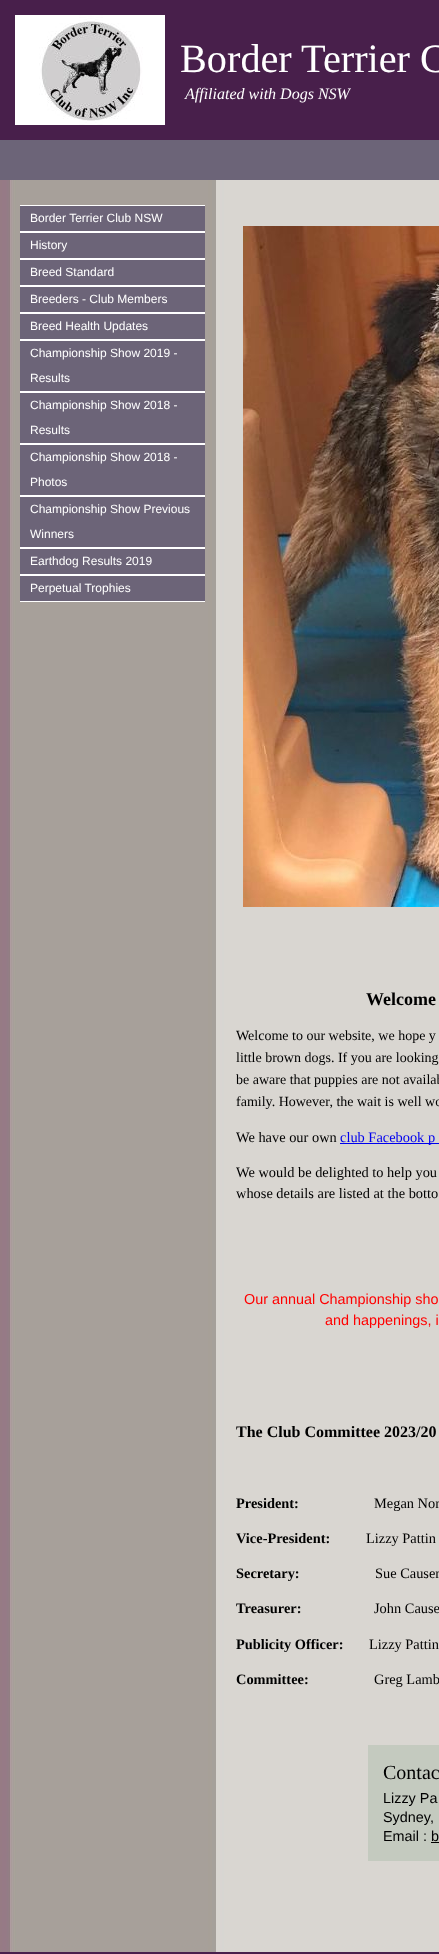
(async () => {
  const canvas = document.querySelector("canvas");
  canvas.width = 439;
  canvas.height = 1954;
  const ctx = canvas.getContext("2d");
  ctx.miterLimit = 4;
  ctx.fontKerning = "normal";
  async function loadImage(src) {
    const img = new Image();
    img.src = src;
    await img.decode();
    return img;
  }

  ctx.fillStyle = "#481f4b";
  ctx.fillRect(0, 0, 439, 1954);
  ctx.drawImage(await loadImage("img/1.png"), 15, 15, 150, 110);
  ctx.fillStyle = "#6c6478";
  ctx.fillRect(0, 140, 439, 40);
  ctx.drawImage(await loadImage("img/2.png"), 0, 180, 439, 1772);
  for (const [x, y, w, h, color] of [
    [20, 206, 185, 395, "#6c6478"],
    [20, 205, 185, 1, "#ffffff"],
    [20, 231, 185, 2, "#ffffff"],
    [20, 258, 185, 2, "#ffffff"],
    [20, 285, 185, 2, "#ffffff"],
    [20, 312, 185, 2, "#ffffff"],
    [20, 339, 185, 2, "#ffffff"],
    [20, 391, 185, 2, "#ffffff"],
    [20, 443, 185, 2, "#ffffff"],
    [20, 495, 185, 2, "#ffffff"],
    [20, 547, 185, 2, "#ffffff"],
    [20, 574, 185, 2, "#ffffff"],
    [20, 601, 185, 1, "#ffffff"],
  ]) {
    ctx.fillStyle = color;
    ctx.fillRect(x, y, w, h);
  }
  ctx.drawImage(await loadImage("img/3.png"), 243, 226, 196, 681);
  for (const [x, y, w, h, color] of [
    [340, 1143, 99, 1, "#0000ee"],
    [368, 1745, 71, 116, "#c4cabf"],
    [431, 1842, 8, 1, "#000000"],
  ]) {
    ctx.fillStyle = color;
    ctx.fillRect(x, y, w, h);
  }
  ctx.font = "40.25px Liberation Serif";
  ctx.fillStyle = "#ffffff";
  ctx.fillText("Border Terrier C", 180, 72);
  ctx.font = "italic 16px Liberation Serif";
  ctx.fillText("Affiliated with Dogs NSW", 185, 99);
  ctx.font = "12px Liberation Sans";
  for (const [text, x, y] of [
    ["Border Terrier Club NSW", 30, 222],
    ["History", 30, 249],
    ["Breed Standard", 30, 276],
    ["Breeders - Club Members", 30, 303],
    ["Breed Health Updates", 30, 330],
    ["Championship Show 2019 -", 30, 357],
    ["Results", 30, 382],
    ["Championship Show 2018 -", 30, 409],
    ["Results", 30, 434],
    ["Championship Show 2018 -", 30, 461],
    ["Photos", 30, 486],
    ["Championship Show Previous", 30, 513],
    ["Winners", 30, 538],
    ["Earthdog Results 2019", 30, 565],
    ["Perpetual Trophies", 30, 592],
  ]) {
    ctx.fillText(text, x, y);
  }
  ctx.font = "bold 18px Liberation Serif";
  ctx.fillStyle = "#000000";
  ctx.fillText("Welcome", 366, 1005);
  ctx.font = "14px Liberation Serif";
  for (const [text, x, y] of [
    ["Welcome to our website, we hope y", 236, 1040],
    ["little brown dogs. If you are looking", 236, 1062],
    ["be aware that puppies are not availab", 236, 1084],
    ["family. However, the wait is well wo", 236, 1106],
  ]) {
    ctx.fillText(text, x, y);
  }
  ctx.font = "14.4px Liberation Serif";
  ctx.fillText("We have our own", 236, 1142);
  ctx.fillStyle = "#0000ee";
  ctx.fillText("club Facebook p", 340, 1142);
  ctx.fillStyle = "#000000";
  ctx.fillText("We would be delighted to help you", 236, 1177);
  ctx.fillText("whose details are listed at the botto", 236, 1198);
  ctx.font = "14.4px Liberation Sans";
  ctx.fillStyle = "#ff0000";
  ctx.fillText("Our annual Championship sho", 244, 1304);
  ctx.fillText("and happenings, i", 325, 1325);
  ctx.font = "bold 16px Liberation Serif";
  ctx.fillStyle = "#000000";
  ctx.fillText("The Club Committee 2023/20", 236, 1437);
  ctx.font = "bold 14.4px Liberation Serif";
  ctx.fillText("President:", 236, 1508);
  ctx.font = "14.4px Liberation Serif";
  ctx.fillText("Megan Nor", 374, 1508);
  ctx.font = "bold 14.4px Liberation Serif";
  ctx.fillText("Vice-President:", 236, 1543);
  ctx.font = "14.4px Liberation Serif";
  ctx.fillText("Lizzy Pattin", 366, 1543);
  ctx.font = "bold 14.4px Liberation Serif";
  ctx.fillText("Secretary:", 236, 1578);
  ctx.font = "14.4px Liberation Serif";
  ctx.fillText("Sue Causer", 375, 1578);
  ctx.font = "bold 14.4px Liberation Serif";
  ctx.fillText("Treasurer:", 236, 1613);
  ctx.font = "14.4px Liberation Serif";
  ctx.fillText("John Cause", 374, 1613);
  ctx.font = "bold 14.4px Liberation Serif";
  ctx.fillText("Publicity Officer:", 236, 1649);
  ctx.font = "14.4px Liberation Serif";
  ctx.fillText("Lizzy Pattin", 369, 1649);
  ctx.font = "bold 14.4px Liberation Serif";
  ctx.fillText("Committee:", 236, 1684);
  ctx.font = "14.4px Liberation Serif";
  ctx.fillText("Greg Lamb", 374, 1684);
  ctx.font = "20px Liberation Serif";
  ctx.fillText("Contac", 383, 1779);
  ctx.font = "14.4px Liberation Sans";
  for (const [text, x, y] of [
    ["Lizzy Pa", 383, 1803],
    ["Sydney,", 383, 1822],
    ["Email : b", 383, 1841],
  ]) {
    ctx.fillText(text, x, y);
  }
})();
